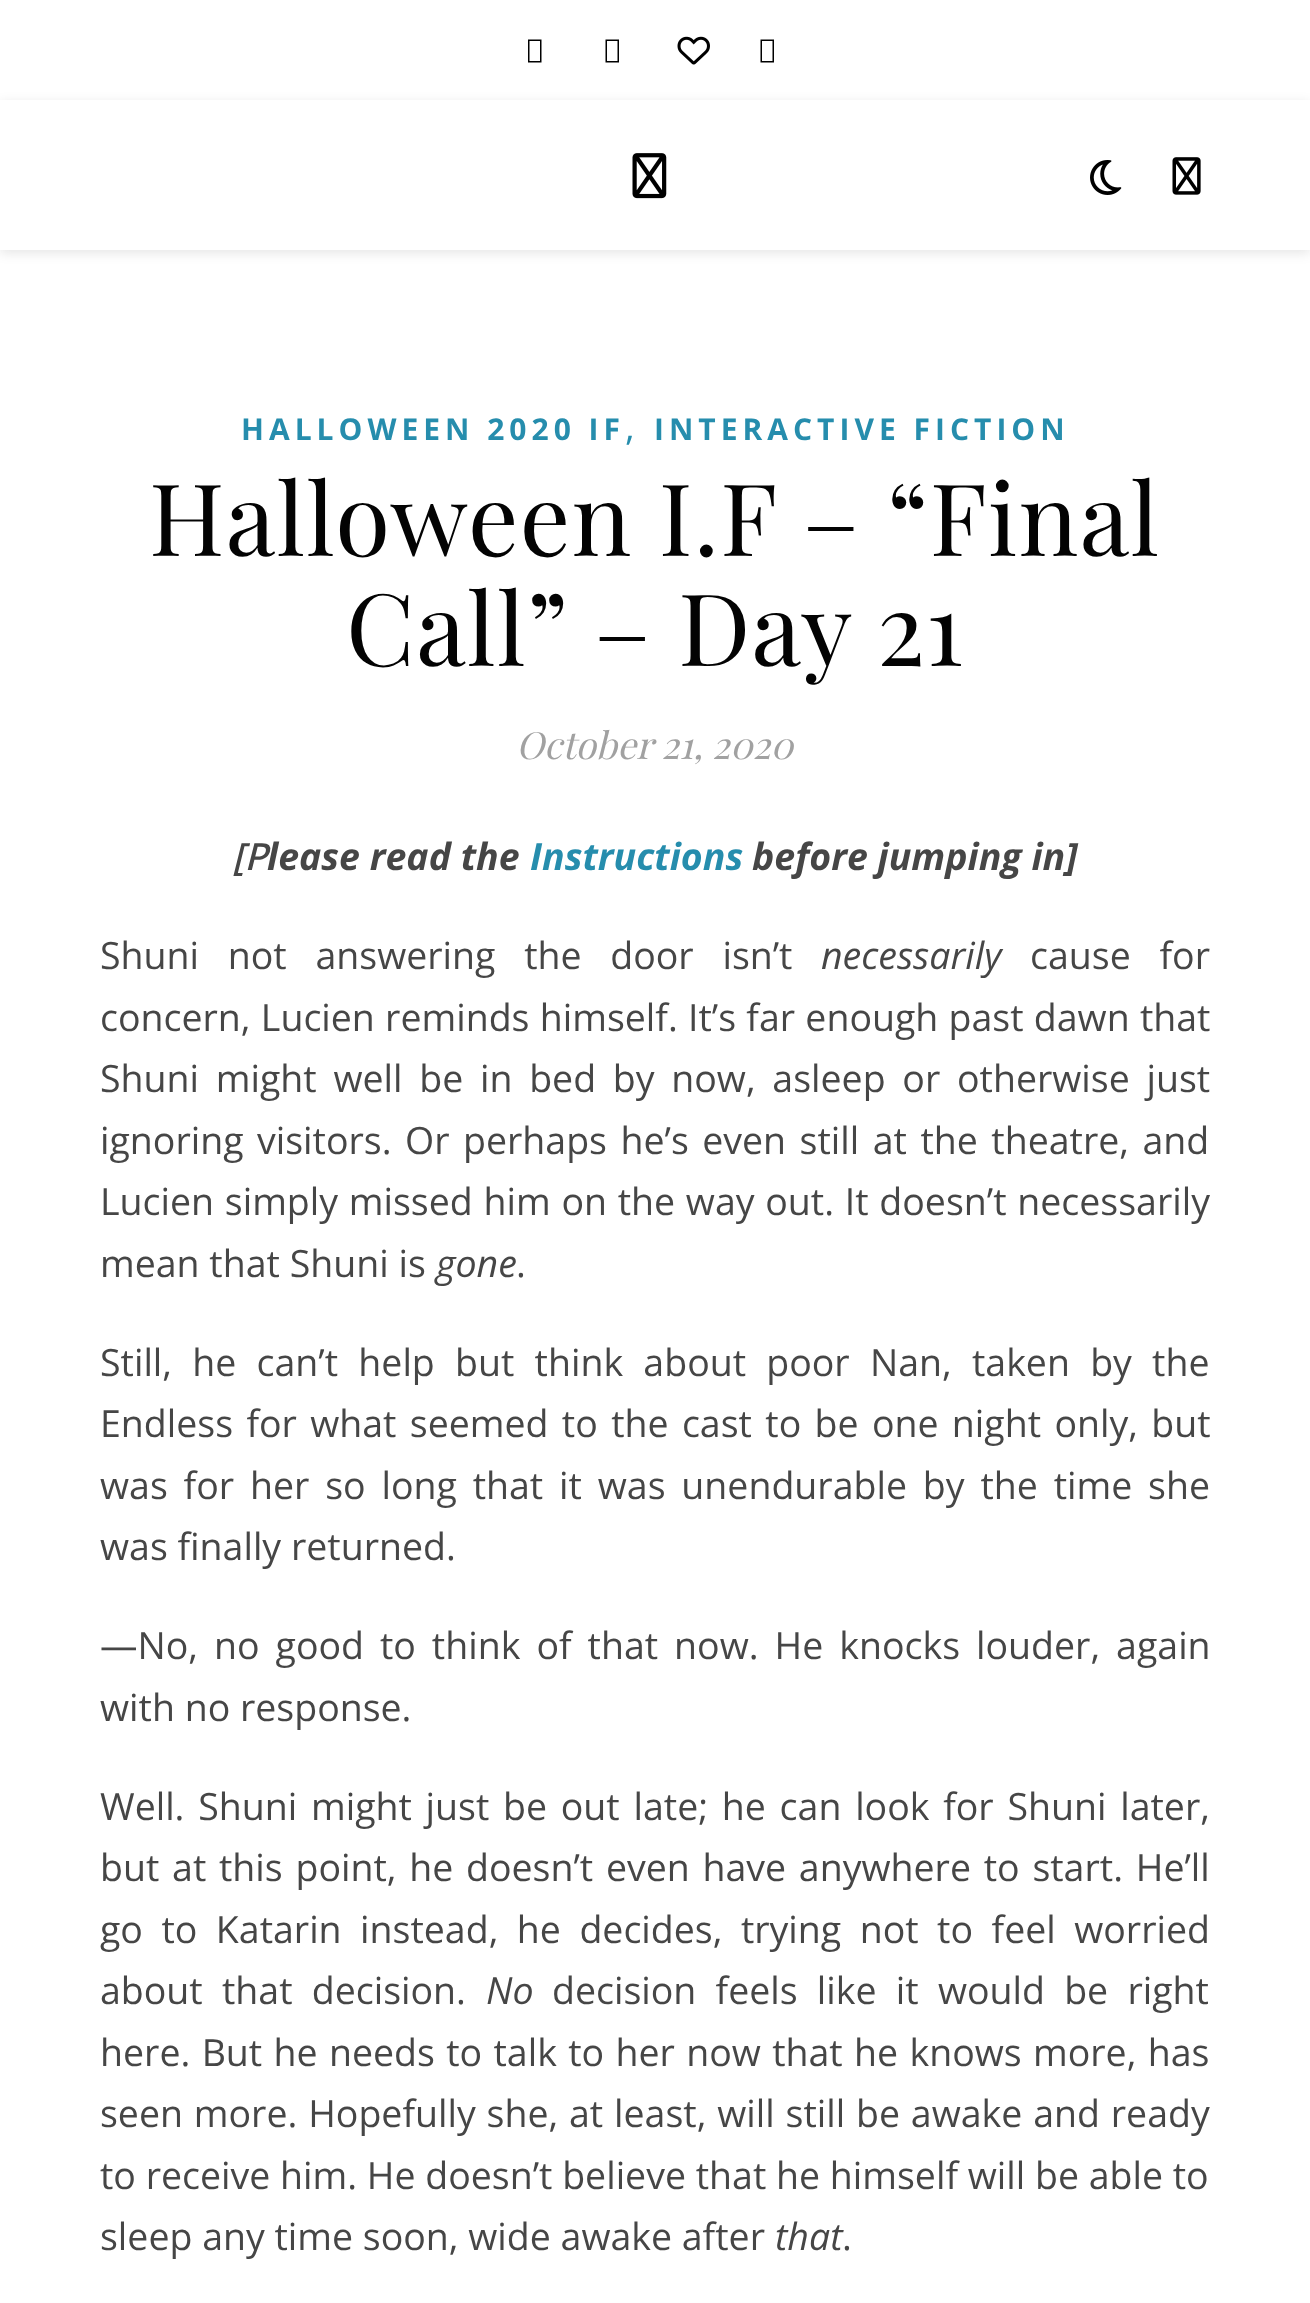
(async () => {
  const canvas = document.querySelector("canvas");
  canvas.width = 1310;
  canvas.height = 2303;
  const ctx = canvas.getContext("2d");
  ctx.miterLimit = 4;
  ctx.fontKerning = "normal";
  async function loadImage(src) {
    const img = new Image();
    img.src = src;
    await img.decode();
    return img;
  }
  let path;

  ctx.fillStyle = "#ffffff";
  ctx.fillRect(0, 0, 1310, 2303);
  ctx.fillStyle = "#000000";
  path = new Path2D("M528 62.5V39.5H541.5V62.5ZM529.5 61H540V41H529.5Z");
  ctx.fill(path);
  path = new Path2D("M605.5 62.5V39.5H619V62.5ZM607 61H617.5V41H607Z");
  ctx.fill(path);
  ctx.drawImage(await loadImage("img/1.png"), 677, 36, 33, 29);
  path = new Path2D("M760.5 62.5V39.5H774V62.5ZM762 61H772.5V41H762Z");
  ctx.fill(path);
  ctx.fillStyle = "rgba(0, 0, 0, 0.1)";
  ctx.filter = "blur(6px)";
  ctx.beginPath();
  ctx.rect(0, 103, 1310, 150);
  ctx.fill();
  ctx.filter = "none";
  ctx.fillStyle = "#ffffff";
  ctx.fillRect(0, 100, 1310, 150);
  ctx.drawImage(await loadImage("img/2.png"), 632, 153, 35, 46);
  ctx.drawImage(await loadImage("img/3.png"), 1090, 160, 32, 35);
  ctx.drawImage(await loadImage("img/4.png"), 1172, 157, 29, 38);
  ctx.letterSpacing = "5px";
  ctx.font = "bold 30px Open Sans";
  ctx.fillStyle = "#268dad";
  ctx.fillText("HALLOWEEN 2020 IF", 241, 440);
  ctx.letterSpacing = "0px";
  ctx.font = "37.5px Open Sans";
  ctx.fillText(",", 625, 440);
  ctx.letterSpacing = "5px";
  ctx.font = "bold 30px Open Sans";
  ctx.fillText("INTERACTIVE FICTION", 654, 440);
  ctx.letterSpacing = "1.25px";
  ctx.font = "100px Playfair Display";
  ctx.fillStyle = "#030303";
  ctx.fillText("Halloween I.F – “Final", 149, 556);
  ctx.fillText("Call” – Day 21", 346, 666);
  ctx.letterSpacing = "0px";
  ctx.font = "italic 37.5px Playfair Display";
  ctx.fillStyle = "#a1a1a1";
  ctx.fillText("October 21, 2020", 516, 759);
  ctx.font = "italic 500 37.5px Noto Sans";
  ctx.fillStyle = "#464646";
  ctx.fillText("[P", 232, 870);
  ctx.font = "italic bold 37.5px Open Sans";
  ctx.fillText("lease read the", 267, 870);
  ctx.fillStyle = "#268dad";
  ctx.fillText("Instructions", 530, 870);
  ctx.fillStyle = "#464646";
  ctx.fillText("before jumping in]", 752, 870);
  ctx.wordSpacing = "19px";
  ctx.font = "37.5px Open Sans";
  ctx.fillText("Shuni not answering the door isn’t", 100, 969);
  ctx.wordSpacing = "0px";
  ctx.font = "italic 37.5px Open Sans";
  ctx.fillText("necessarily", 821, 969);
  ctx.wordSpacing = "19px";
  ctx.font = "37.5px Open Sans";
  ctx.fillText("cause for", 1030, 969);
  ctx.wordSpacing = "0.5px";
  ctx.fillText("concern, Lucien reminds himself. It’s far enough past dawn that", 100, 1031);
  ctx.wordSpacing = "7px";
  ctx.fillText("Shuni might well be in bed by now, asleep or otherwise just", 100, 1092);
  ctx.wordSpacing = "3.75px";
  ctx.fillText("ignoring visitors. Or perhaps he’s even still at the theatre, and", 100, 1154);
  ctx.wordSpacing = "1px";
  ctx.fillText("Lucien simply missed him on the way out. It doesn’t necessarily", 100, 1215);
  ctx.wordSpacing = "0px";
  ctx.fillText("mean that Shuni is", 100, 1277);
  ctx.font = "italic 37.5px Open Sans";
  ctx.fillText("gone", 436, 1277);
  ctx.font = "37.5px Open Sans";
  ctx.fillText(".", 516, 1277);
  ctx.wordSpacing = "10.5px";
  ctx.fillText("Still, he can’t help but think about poor Nan, taken by the", 100, 1376);
  ctx.wordSpacing = "3.6px";
  ctx.fillText("Endless for what seemed to the cast to be one night only, but", 100, 1437);
  ctx.wordSpacing = "6.1px";
  ctx.fillText("was for her so long that it was unendurable by the time she", 100, 1499);
  ctx.wordSpacing = "0px";
  ctx.fillText("was finally returned.", 100, 1560);
  ctx.wordSpacing = "6.25px";
  ctx.fillText("—No, no good to think of that now. He knocks louder, again", 100, 1659);
  ctx.wordSpacing = "0px";
  ctx.fillText("with no response.", 100, 1721);
  ctx.wordSpacing = "4px";
  ctx.fillText("Well. Shuni might just be out late; he can look for Shuni later,", 100, 1820);
  ctx.wordSpacing = "3px";
  ctx.fillText("but at this point, he doesn’t even have anywhere to start. He’ll", 100, 1881);
  ctx.wordSpacing = "8.75px";
  ctx.fillText("go to Katarin instead, he decides, trying not to feel worried", 100, 1943);
  ctx.wordSpacing = "9.5px";
  ctx.fillText("about that decision.", 100, 2004);
  ctx.wordSpacing = "0px";
  ctx.font = "italic 37.5px Open Sans";
  ctx.fillText("No", 486, 2004);
  ctx.wordSpacing = "9.5px";
  ctx.font = "37.5px Open Sans";
  ctx.fillText("decision feels like it would be right", 552, 2004);
  ctx.wordSpacing = "1.6px";
  ctx.fillText("here. But he needs to talk to her now that he knows more, has", 100, 2066);
  ctx.wordSpacing = "1.1px";
  ctx.fillText("seen more. Hopefully she, at least, will still be awake and ready", 100, 2127);
  ctx.wordSpacing = "0px";
  ctx.fillText("to receive him. He doesn’t believe that he himself will be able to", 100, 2189);
  ctx.fillText("sleep any time soon, wide awake after", 100, 2250);
  ctx.font = "italic 37.5px Open Sans";
  ctx.fillText("that", 775, 2250);
  ctx.font = "37.5px Open Sans";
  ctx.fillText(".", 842, 2250);
})();
